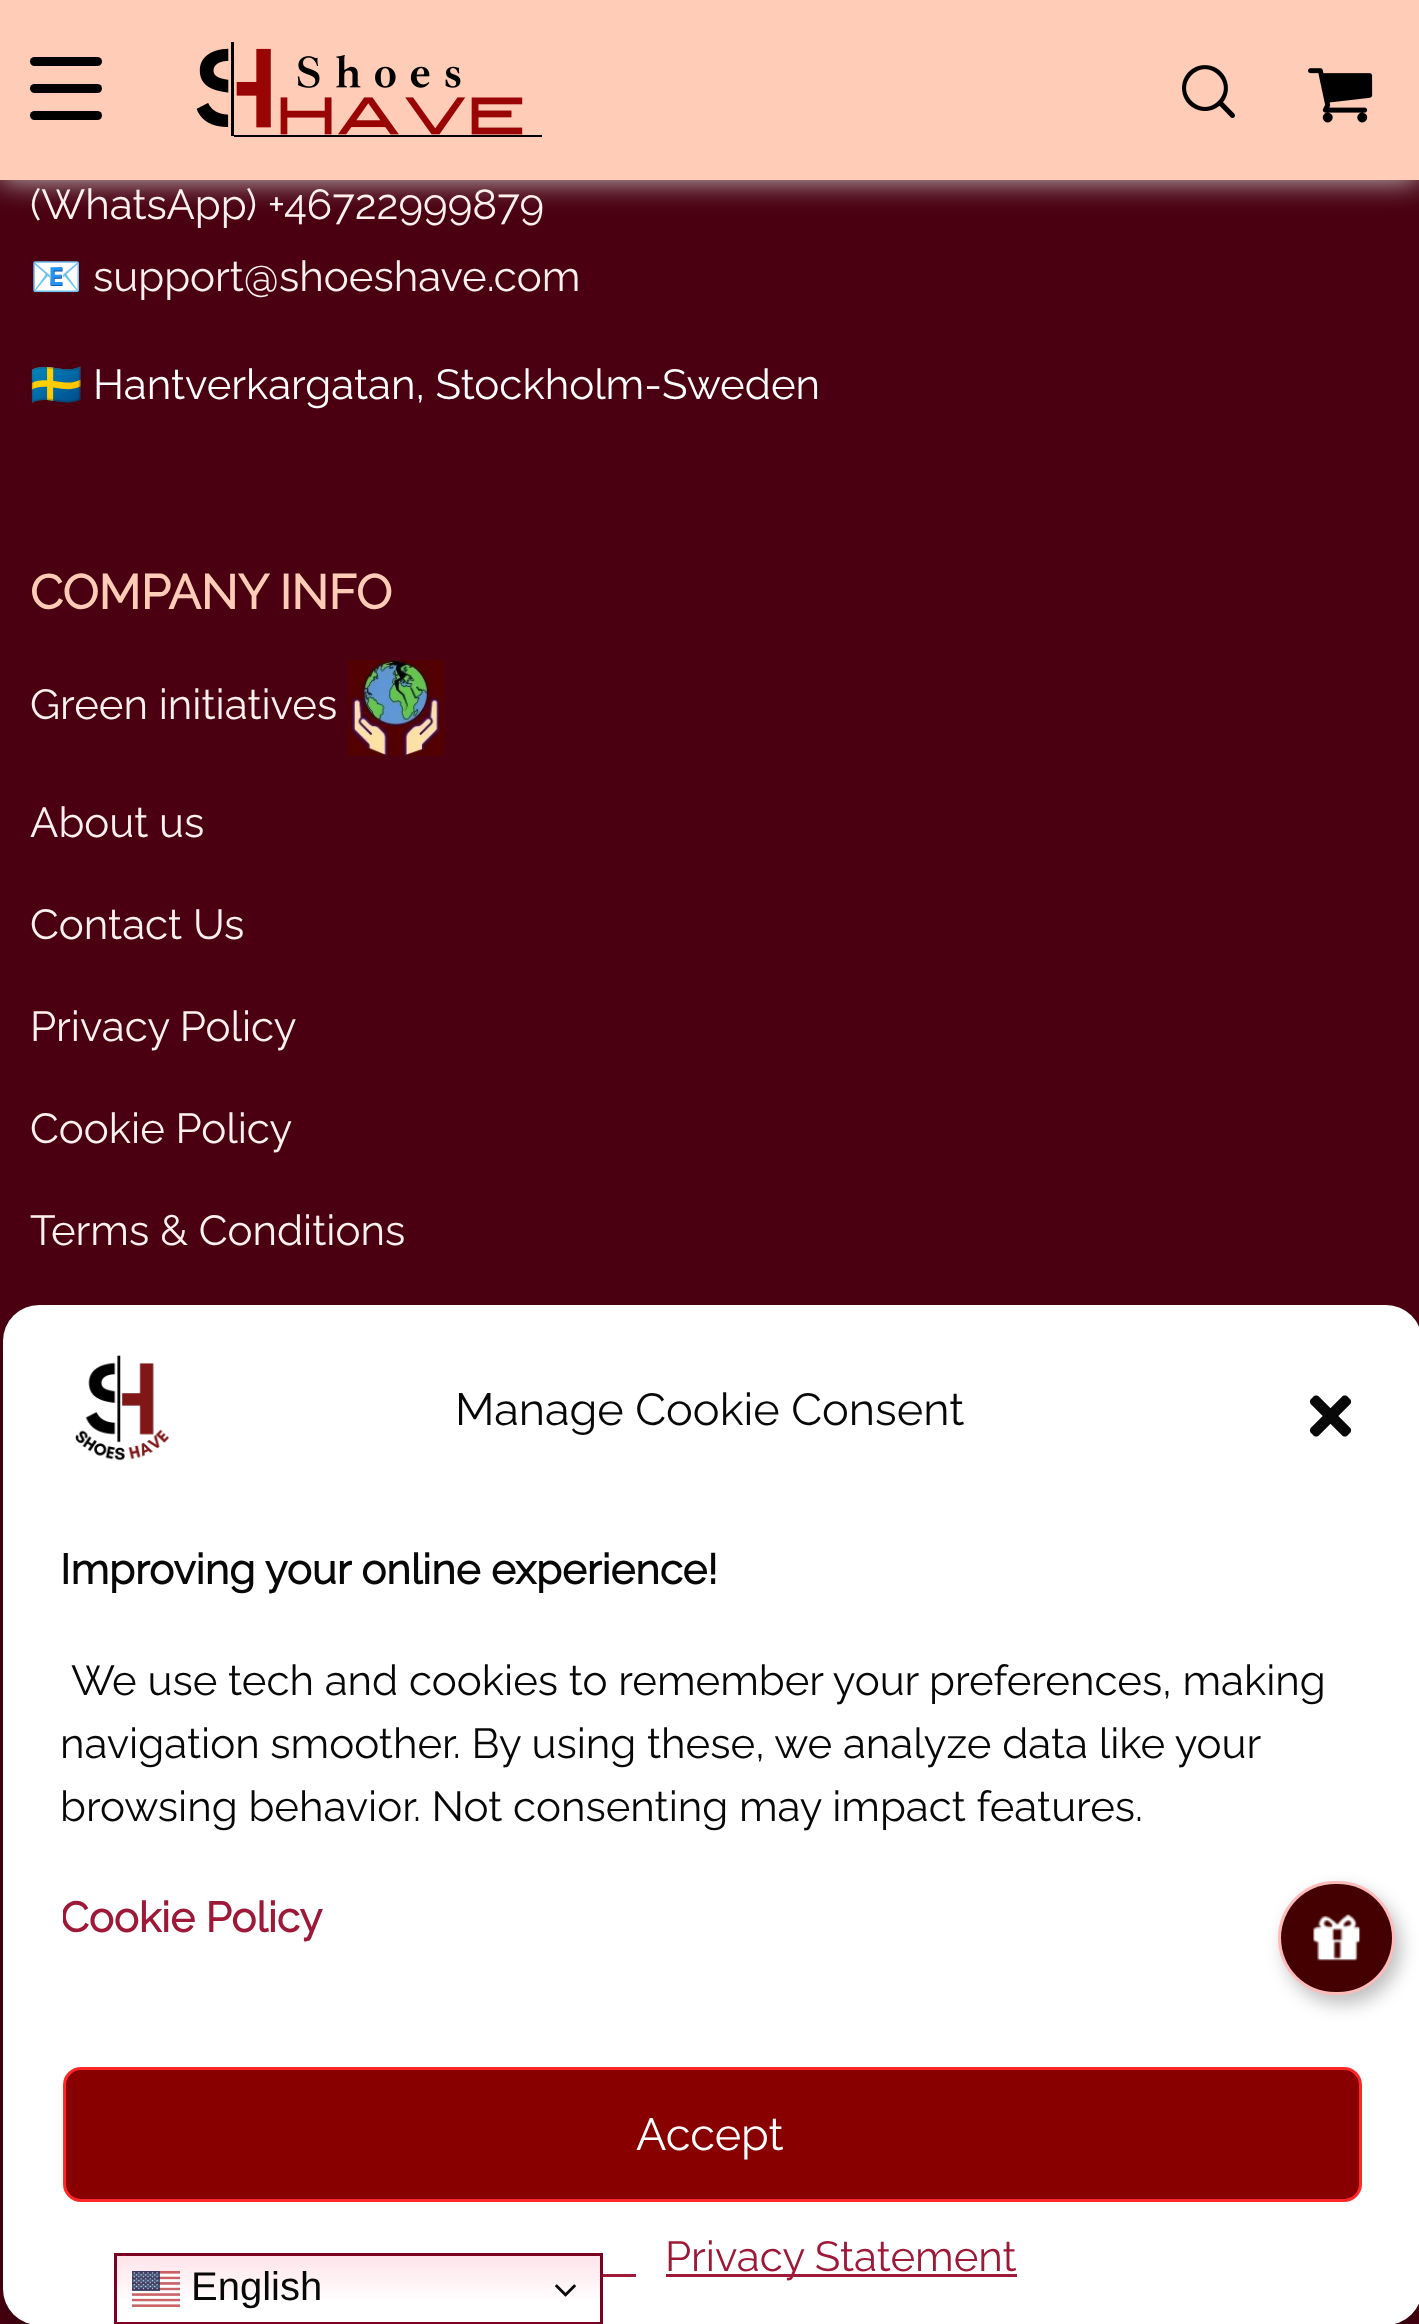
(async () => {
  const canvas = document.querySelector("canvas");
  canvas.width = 1419;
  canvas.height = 2324;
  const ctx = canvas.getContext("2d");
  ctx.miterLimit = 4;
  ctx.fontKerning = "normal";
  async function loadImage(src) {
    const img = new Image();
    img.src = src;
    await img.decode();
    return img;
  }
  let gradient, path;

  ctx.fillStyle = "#4a0011";
  ctx.fillRect(0, 0, 1419, 2324);
  ctx.fillStyle = "#cccccc";
  ctx.filter = "blur(15px)";
  ctx.beginPath();
  ctx.rect(0, 0, 1419, 180);
  ctx.fill();
  ctx.filter = "none";
  ctx.fillStyle = "#ffccb7";
  ctx.fillRect(0, 0, 1419, 180);
  ctx.fillStyle = "#000000";
  ctx.beginPath();
  ctx.roundRect(30, 57, 72, 9, 4.5);
  ctx.fill();
  ctx.beginPath();
  ctx.roundRect(30, 84, 72, 9, 4.5);
  ctx.fill();
  ctx.beginPath();
  ctx.roundRect(30, 111, 72, 9, 4.5);
  ctx.fill();
  ctx.drawImage(await loadImage("img/1.png"), 196, 42, 346, 95);
  ctx.drawImage(await loadImage("img/2.png"), 1182, 65, 53, 53);
  ctx.drawImage(await loadImage("img/3.png"), 1308, 68, 65, 55);
  ctx.drawImage(await loadImage("img/4.png"), 348, 660, 96, 96);
  ctx.save();
  path = new Path2D("M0 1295H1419V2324H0ZM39 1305H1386C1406 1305 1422 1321 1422 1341V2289C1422 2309 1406 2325 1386 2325H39C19 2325 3 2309 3 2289V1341C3 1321 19 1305 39 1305Z");
  ctx.clip(path, "evenodd");
  ctx.fillStyle = "rgba(0, 0, 0, 0.23)";
  ctx.filter = "blur(9px)";
  ctx.beginPath();
  ctx.roundRect(3, 1323, 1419, 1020, 36);
  ctx.fill();
  ctx.filter = "none";
  ctx.restore();
  ctx.fillStyle = "#ffffff";
  ctx.beginPath();
  ctx.roundRect(3, 1305, 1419, 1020, 36);
  ctx.fill();
  ctx.drawImage(await loadImage("img/5.png"), 75, 1354, 94, 107);
  ctx.drawImage(await loadImage("img/6.png"), 1309, 1395, 43, 42);
  ctx.fillStyle = "#880000";
  ctx.beginPath();
  ctx.roundRect(64.5, 2068.5, 1296, 132, 16.5);
  ctx.fill();
  ctx.strokeStyle = "#ff2828";
  ctx.lineWidth = 3;
  ctx.stroke();
  ctx.fillStyle = "#9e1938";
  ctx.fillRect(603, 2274, 33, 3);
  ctx.fillRect(666, 2274, 351, 3);
  ctx.fillStyle = "rgba(0, 0, 0, 0.25)";
  ctx.filter = "blur(9px)";
  ctx.beginPath();
  ctx.roundRect(1284, 1890, 117, 114, 57);
  ctx.fill();
  ctx.filter = "none";
  ctx.beginPath();
  ctx.roundRect(1279.5, 1882.5, 114, 111, 55.5);
  ctx.strokeStyle = "#ffbaba";
  ctx.stroke();
  ctx.fillStyle = "#440000";
  ctx.beginPath();
  ctx.roundRect(1281, 1884, 111, 108, 54);
  ctx.fill();
  ctx.drawImage(await loadImage("img/7.png"), 1313, 1914, 48, 47);
  gradient = ctx.createLinearGradient(359, 2253, 359, 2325);
  gradient.addColorStop(0, "#ffe2e9");
  gradient.addColorStop(0.7, "#ffffff");
  ctx.fillStyle = gradient;
  ctx.fillRect(117, 2256, 483, 43);
  ctx.strokeStyle = "#7c0021";
  ctx.strokeRect(115.5, 2254.5, 486, 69);
  ctx.drawImage(await loadImage("img/8.png"), 132, 2271, 48, 36);
  ctx.drawImage(await loadImage("img/9.png"), 555, 2284, 21, 13);
  ctx.font = "100 42px Raleway";
  ctx.fillStyle = "#fff1ec";
  ctx.fillText("(WhatsApp) +46722999879", 30, 219);
  ctx.font = "42px Noto Color Emoji";
  ctx.fillText("📧", 30, 291);
  ctx.font = "100 42px Raleway";
  ctx.fillText("support@shoeshave.com", 93, 291);
  ctx.font = "42px Noto Color Emoji";
  ctx.fillStyle = "#ffffff";
  ctx.fillText("🇸🇪", 30, 399);
  ctx.font = "100 42px Raleway";
  ctx.fillText("Hantverkargatan, Stockholm-Sweden", 93, 399);
  ctx.font = "bold 48px Raleway";
  ctx.fillStyle = "#ffccb7";
  ctx.fillText("COMPANY INFO", 30, 609);
  ctx.font = "100 42px Raleway";
  ctx.fillStyle = "#fff1ec";
  for (const [text, x, y] of [
    ["Green initiatives", 30, 719],
    ["About us", 30, 837],
    ["Contact Us", 30, 939],
    ["Privacy Policy", 30, 1041],
    ["Cookie Policy", 30, 1143],
    ["Terms & Conditions", 30, 1245],
  ]) {
    ctx.fillText(text, x, y);
  }
  ctx.font = "100 45px Raleway";
  ctx.fillStyle = "#080808";
  ctx.fillText("Manage Cookie Consent", 455, 1425);
  ctx.font = "bold 42px Raleway";
  ctx.fillText("Improving your online experience!", 60, 1584);
  ctx.font = "100 42px Raleway";
  for (const [text, x, y] of [
    ["We use tech and cookies to remember your preferences, making", 71, 1695],
    ["navigation smoother. By using these, we analyze data like your", 60, 1758],
    ["browsing behavior. Not consenting may impact features.", 60, 1821],
  ]) {
    ctx.fillText(text, x, y);
  }
  ctx.save();
  ctx.beginPath();
  ctx.rect(63, 1539, 1299, 459);
  ctx.clip();
  ctx.font = "bold 42px Raleway";
  ctx.fillStyle = "#9e1938";
  ctx.fillText("Cookie Policy", 60, 1932);
  ctx.restore();
  ctx.font = "100 45px Raleway";
  ctx.fillStyle = "#ffffff";
  ctx.fillText("Accept", 636, 2150);
  ctx.font = "100 42px Raleway";
  ctx.fillStyle = "#9e1938";
  ctx.fillText("Privacy Statement", 665, 2271);
  ctx.font = "40px Liberation Sans";
  ctx.fillStyle = "#080808";
  ctx.fillText("English", 191, 2300);
})();
